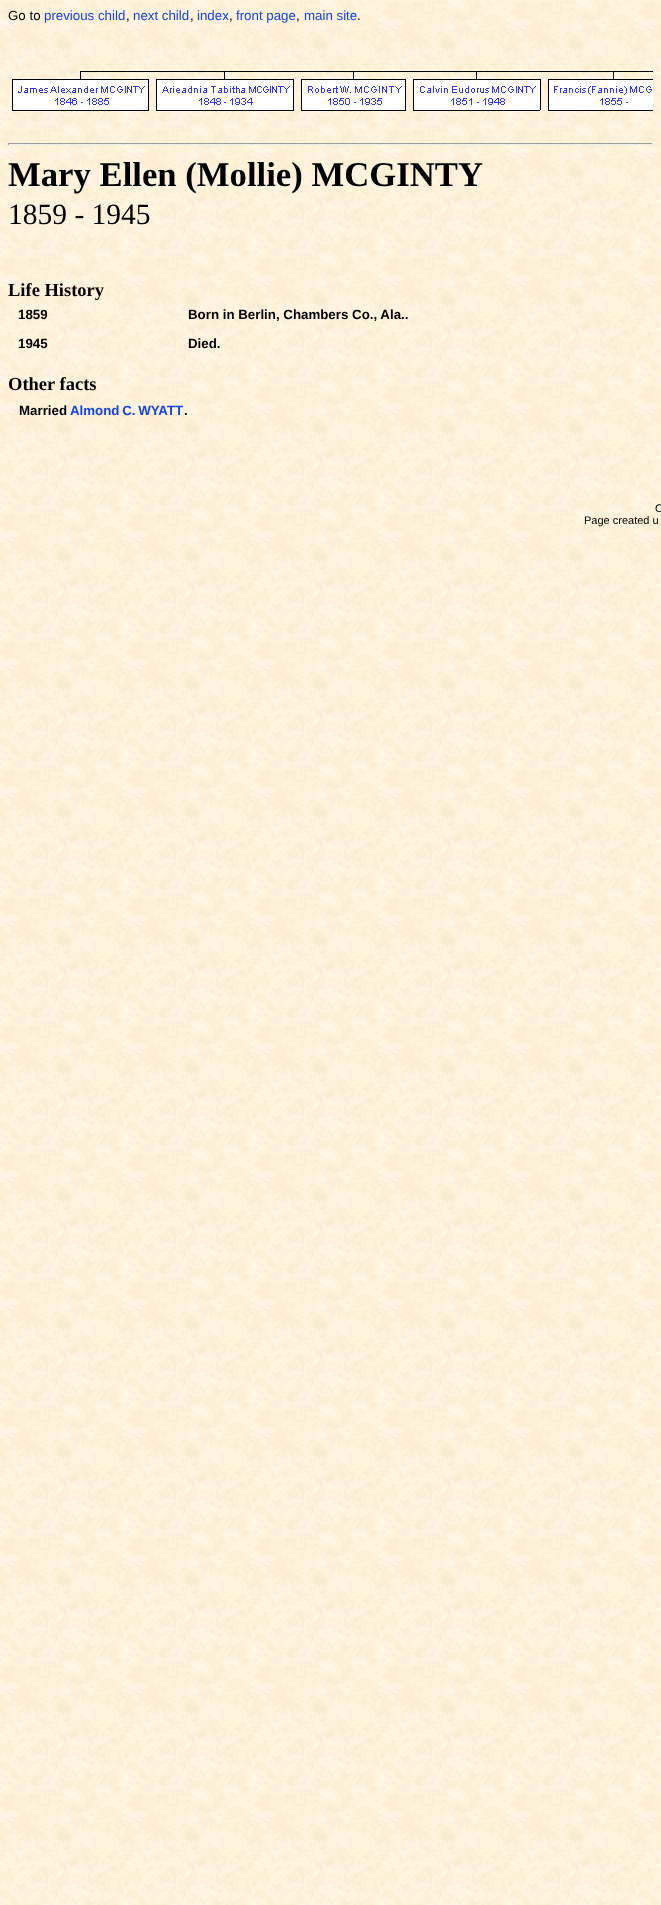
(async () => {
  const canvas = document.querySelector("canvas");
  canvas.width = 661;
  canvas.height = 1905;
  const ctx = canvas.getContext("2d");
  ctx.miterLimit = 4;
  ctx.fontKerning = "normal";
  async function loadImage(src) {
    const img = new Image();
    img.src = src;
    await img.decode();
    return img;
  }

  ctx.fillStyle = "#ffffff";
  ctx.fillRect(0, 0, 661, 1905);
  ctx.drawImage(await loadImage("img/1.png"), 0, 0, 661, 1905);
  ctx.drawImage(await loadImage("img/2.png"), 12, 71, 641, 40);
  for (const [x, y, w, h, color] of [
    [8, 143, 645, 1, "#9f9f9f"],
    [652, 143, 1, 2, "#eeeeee"],
    [8, 144, 645, 1, "#eeeeee"],
    [8, 143, 1, 2, "#9f9f9f"],
  ]) {
    ctx.fillStyle = color;
    ctx.fillRect(x, y, w, h);
  }
  ctx.font = "13.3px Liberation Sans";
  ctx.fillStyle = "#000000";
  ctx.fillText("Go to", 8, 20);
  ctx.fillStyle = "#1344e9";
  ctx.fillText("previous child", 44, 20);
  ctx.fillStyle = "#000000";
  ctx.fillText(",", 126, 20);
  ctx.fillStyle = "#1344e9";
  ctx.fillText("next child", 133, 20);
  ctx.fillStyle = "#000000";
  ctx.fillText(",", 190, 20);
  ctx.fillStyle = "#1344e9";
  ctx.fillText("index", 197, 20);
  ctx.fillStyle = "#000000";
  ctx.fillText(",", 229, 20);
  ctx.fillStyle = "#1344e9";
  ctx.fillText("front page", 236, 20);
  ctx.fillStyle = "#000000";
  ctx.fillText(",", 296, 20);
  ctx.fillStyle = "#1344e9";
  ctx.fillText("main site", 304, 20);
  ctx.fillStyle = "#000000";
  ctx.fillText(".", 357, 20);
  ctx.font = "bold 34.7px Liberation Serif";
  ctx.fillText("Mary Ellen (Mollie) MCGINTY", 8, 186);
  ctx.font = "29.5px Liberation Serif";
  ctx.fillText("1859 - 1945", 8, 224);
  ctx.font = "bold 18.5px Liberation Serif";
  ctx.fillText("Life History", 8, 296);
  ctx.font = "bold 13.3px Liberation Sans";
  for (const [text, x, y] of [
    ["1859", 18, 319],
    ["Born in Berlin, Chambers Co., Ala..", 188, 319],
    ["1945", 18, 348],
    ["Died.", 188, 348],
  ]) {
    ctx.fillText(text, x, y);
  }
  ctx.font = "bold 18.5px Liberation Serif";
  ctx.fillText("Other facts", 8, 390);
  ctx.font = "bold 13.3px Liberation Sans";
  ctx.fillText("Married", 19, 415);
  ctx.wordSpacing = "-1px";
  ctx.fillStyle = "#1344e9";
  ctx.fillText("Almond C. WYATT", 70, 415);
  ctx.wordSpacing = "0px";
  ctx.fillStyle = "#000000";
  ctx.fillText(".", 184, 415);
  ctx.font = "11px Liberation Sans";
  ctx.fillText("C", 655, 512);
  ctx.fillText("Page created u", 584, 524);
})();
